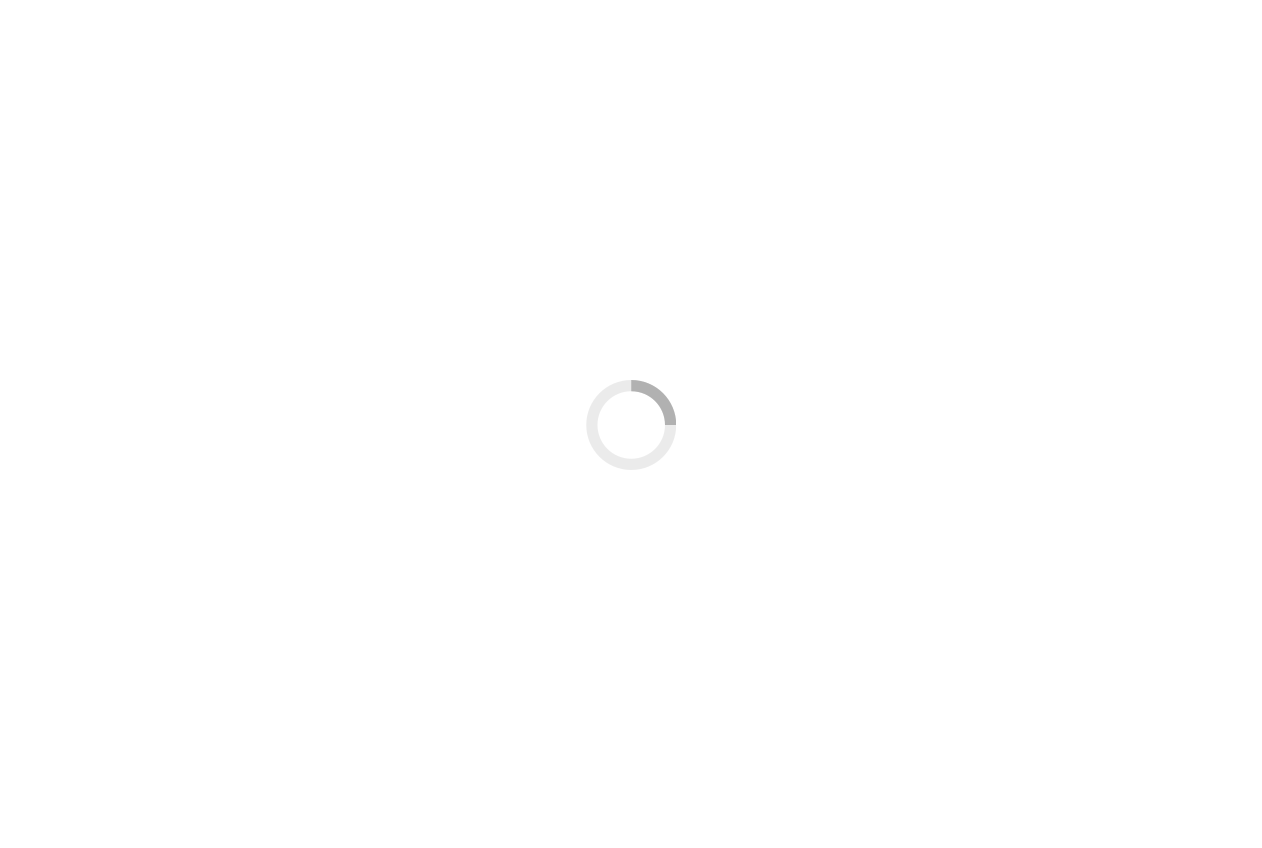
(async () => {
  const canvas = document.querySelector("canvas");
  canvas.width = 1262;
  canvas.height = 848;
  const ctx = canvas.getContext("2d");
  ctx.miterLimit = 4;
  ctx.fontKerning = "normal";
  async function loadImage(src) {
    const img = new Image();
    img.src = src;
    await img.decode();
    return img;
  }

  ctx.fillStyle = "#ffffff";
  ctx.fillRect(0, 0, 1262, 848);
  ctx.drawImage(await loadImage("img/1.png"), 586, 380, 90, 90);
})();
